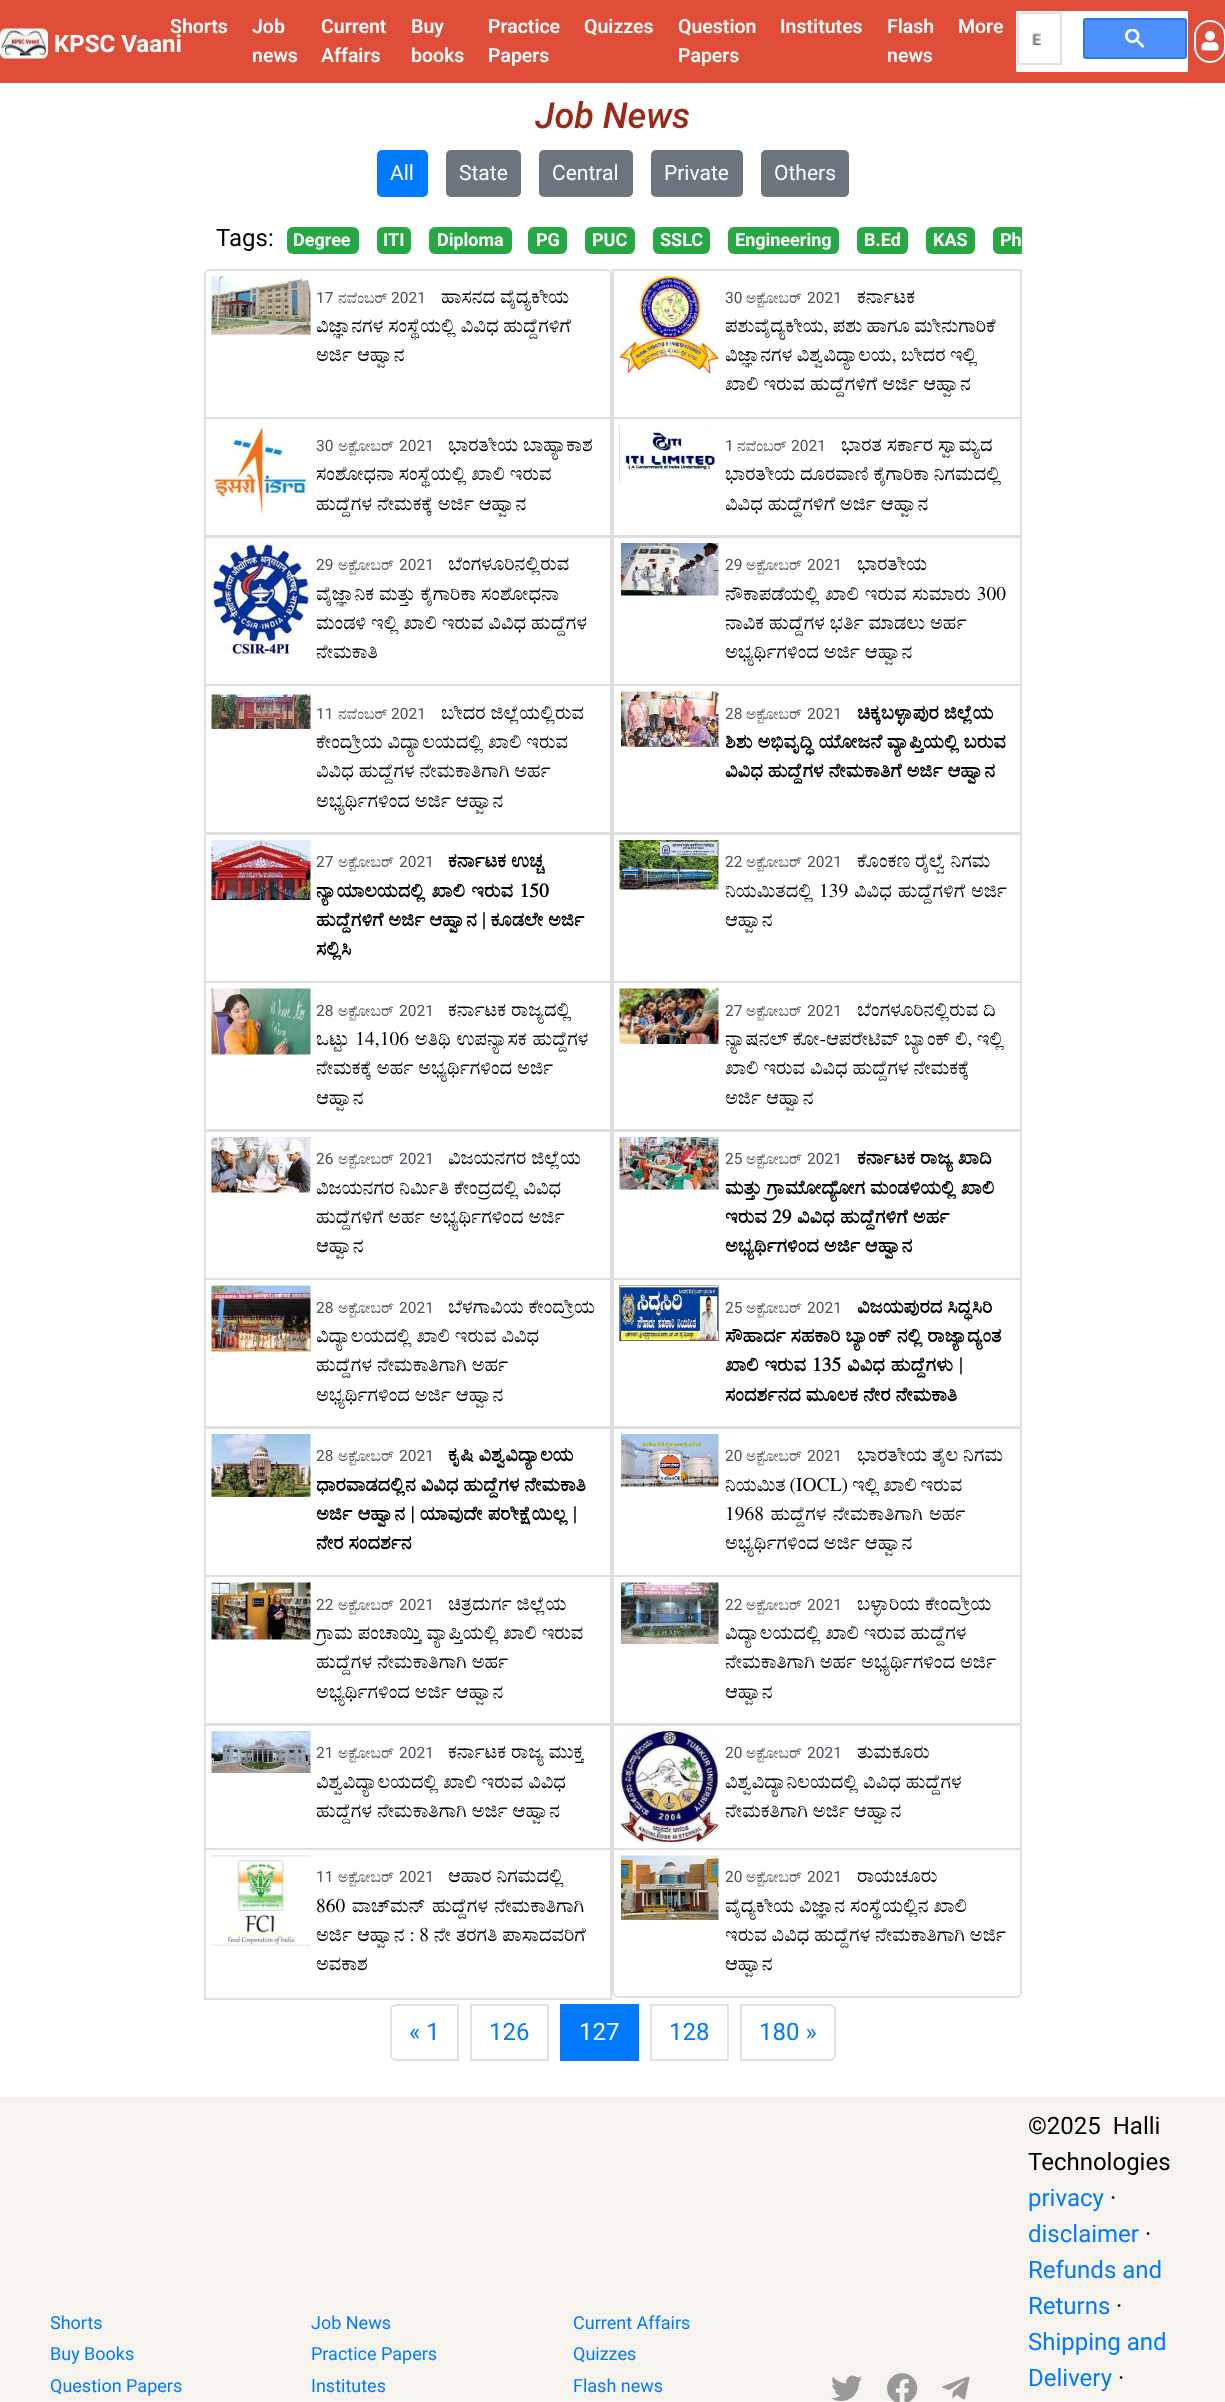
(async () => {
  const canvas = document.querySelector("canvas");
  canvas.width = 1225;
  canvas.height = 2402;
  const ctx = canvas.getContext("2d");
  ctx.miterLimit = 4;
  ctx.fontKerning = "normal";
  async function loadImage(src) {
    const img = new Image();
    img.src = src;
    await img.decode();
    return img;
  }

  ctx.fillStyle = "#ffffff";
  ctx.fillRect(0, 0, 1225, 2402);
  ctx.fillStyle = "#e04e39";
  ctx.fillRect(0, 0, 1225, 83);
  ctx.drawImage(await loadImage("img/1.png"), 0, 28, 48, 31);
  ctx.fillStyle = "#ffffff";
  ctx.fillRect(1016, 11, 172, 61);
  ctx.strokeStyle = "#dfe1e5";
  ctx.lineWidth = 2;
  ctx.strokeRect(1018, 13, 43, 51);
  ctx.drawImage(await loadImage("img/2.png"), 1032, 32, 9, 14);
  ctx.fillStyle = "#4d90fe";
  ctx.beginPath();
  ctx.roundRect(1084, 19, 102, 39, 2);
  ctx.fill();
  ctx.strokeStyle = "#3079ed";
  ctx.stroke();
  ctx.drawImage(await loadImage("img/3.png"), 1125, 29, 20, 19);
  ctx.beginPath();
  ctx.roundRect(1195, 21, 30, 41, 15);
  ctx.strokeStyle = "#ffffff";
  ctx.stroke();
  ctx.drawImage(await loadImage("img/4.png"), 1201, 30, 18, 21);
  ctx.fillStyle = "#007bff";
  ctx.beginPath();
  ctx.roundRect(378, 151, 49, 45, 4);
  ctx.fill();
  ctx.strokeStyle = "#007bff";
  ctx.stroke();
  ctx.fillStyle = "#6c757d";
  ctx.beginPath();
  ctx.roundRect(447, 151, 73, 45, 4);
  ctx.fill();
  ctx.strokeStyle = "#6c757d";
  ctx.stroke();
  ctx.beginPath();
  ctx.roundRect(540, 151, 92, 45, 4);
  ctx.fill();
  ctx.stroke();
  ctx.beginPath();
  ctx.roundRect(652, 151, 90, 45, 4);
  ctx.fill();
  ctx.stroke();
  ctx.beginPath();
  ctx.roundRect(762, 151, 86, 45, 4);
  ctx.fill();
  ctx.stroke();
  ctx.fillStyle = "#28a745";
  ctx.beginPath();
  ctx.roundRect(287, 227, 72, 27, 6);
  ctx.fill();
  ctx.beginPath();
  ctx.roundRect(377, 227, 34, 27, 6);
  ctx.fill();
  ctx.beginPath();
  ctx.roundRect(429, 227, 83, 27, 6);
  ctx.fill();
  ctx.beginPath();
  ctx.roundRect(528, 227, 39, 27, 6);
  ctx.fill();
  ctx.beginPath();
  ctx.roundRect(585, 227, 50, 27, 6);
  ctx.fill();
  ctx.beginPath();
  ctx.roundRect(653, 227, 57, 27, 6);
  ctx.fill();
  ctx.beginPath();
  ctx.roundRect(728, 227, 111, 27, 6);
  ctx.fill();
  ctx.beginPath();
  ctx.roundRect(857, 227, 51, 27, 6);
  ctx.fill();
  ctx.beginPath();
  ctx.roundRect(926, 227, 49, 27, 6);
  ctx.fill();
  ctx.beginPath();
  ctx.roundRect(993, 227, 29, 27, [6, 0, 0, 6]);
  ctx.fill();
  ctx.beginPath();
  ctx.roundRect(205, 270, 406, 148, [5, 5, 0, 0]);
  ctx.strokeStyle = "#dfdfdf";
  ctx.stroke();
  ctx.drawImage(await loadImage("img/5.png"), 211, 276, 100, 59);
  ctx.strokeRect(613, 270, 408, 148);
  ctx.drawImage(await loadImage("img/6.png"), 619, 276, 100, 98);
  ctx.strokeRect(205, 418, 406, 118);
  ctx.drawImage(await loadImage("img/7.png"), 211, 424, 96, 92);
  ctx.strokeRect(613, 418, 408, 118);
  ctx.drawImage(await loadImage("img/8.png"), 619, 424, 99, 59);
  ctx.strokeRect(205, 537, 406, 148);
  ctx.drawImage(await loadImage("img/9.png"), 211, 543, 100, 113);
  ctx.strokeRect(613, 537, 408, 148);
  ctx.drawImage(await loadImage("img/10.png"), 621, 543, 98, 53);
  ctx.strokeRect(205, 685, 406, 148);
  ctx.drawImage(await loadImage("img/11.png"), 211, 694, 100, 35);
  ctx.strokeRect(613, 685, 408, 148);
  ctx.drawImage(await loadImage("img/12.png"), 621, 691, 98, 56);
  ctx.strokeRect(205, 834, 406, 148);
  ctx.drawImage(await loadImage("img/13.png"), 211, 840, 100, 60);
  ctx.strokeRect(613, 834, 408, 148);
  ctx.drawImage(await loadImage("img/14.png"), 619, 840, 100, 50);
  ctx.strokeRect(205, 982, 406, 148);
  ctx.drawImage(await loadImage("img/15.png"), 211, 988, 100, 67);
  ctx.strokeRect(613, 982, 408, 148);
  ctx.drawImage(await loadImage("img/16.png"), 619, 988, 100, 56);
  ctx.strokeRect(205, 1131, 406, 148);
  ctx.drawImage(await loadImage("img/17.png"), 211, 1137, 100, 56);
  ctx.strokeRect(613, 1131, 408, 148);
  ctx.drawImage(await loadImage("img/18.png"), 619, 1137, 100, 53);
  ctx.strokeRect(205, 1279, 406, 148);
  ctx.drawImage(await loadImage("img/19.png"), 211, 1285, 100, 67);
  ctx.strokeRect(613, 1279, 408, 148);
  ctx.drawImage(await loadImage("img/20.png"), 619, 1285, 100, 56);
  ctx.strokeRect(205, 1428, 406, 148);
  ctx.drawImage(await loadImage("img/21.png"), 211, 1434, 100, 63);
  ctx.strokeRect(613, 1428, 408, 148);
  ctx.drawImage(await loadImage("img/22.png"), 621, 1434, 98, 53);
  ctx.strokeRect(205, 1576, 406, 148);
  ctx.drawImage(await loadImage("img/23.png"), 211, 1582, 100, 58);
  ctx.strokeRect(613, 1576, 408, 148);
  ctx.drawImage(await loadImage("img/24.png"), 621, 1582, 98, 62);
  ctx.strokeRect(205, 1725, 406, 124);
  ctx.drawImage(await loadImage("img/25.png"), 211, 1731, 100, 42);
  ctx.strokeRect(613, 1725, 408, 124);
  ctx.drawImage(await loadImage("img/26.png"), 619, 1731, 100, 111);
  ctx.strokeRect(205, 1849, 406, 150);
  ctx.drawImage(await loadImage("img/27.png"), 211, 1855, 100, 91);
  ctx.fillStyle = "#ffffff";
  ctx.beginPath();
  ctx.roundRect(613, 1849, 408, 148, [0, 0, 5, 5]);
  ctx.fill();
  ctx.stroke();
  ctx.drawImage(await loadImage("img/28.png"), 621, 1855, 98, 65);
  ctx.beginPath();
  ctx.roundRect(391, 2005, 67, 55, [5, 0, 0, 5]);
  ctx.strokeStyle = "#dee2e6";
  ctx.stroke();
  ctx.strokeRect(471, 2005, 77, 55);
  ctx.fillStyle = "#007bff";
  ctx.fillRect(560, 2004, 79, 57);
  ctx.strokeRect(651, 2005, 77, 55);
  ctx.beginPath();
  ctx.roundRect(741, 2005, 94, 55, [0, 5, 5, 0]);
  ctx.stroke();
  ctx.fillStyle = "#f7f3ee";
  ctx.fillRect(0, 2097, 1225, 305);
  ctx.drawImage(await loadImage("img/29.png"), 831, 2375, 31, 26);
  ctx.drawImage(await loadImage("img/30.png"), 887, 2373, 31, 29);
  ctx.drawImage(await loadImage("img/31.png"), 942, 2376, 28, 24);
  ctx.font = "bold 24px Roboto";
  ctx.fillStyle = "#ffffff";
  ctx.fillText("KPSC Vaani", 54, 52);
  ctx.font = "600 19.5px Roboto";
  for (const [text, x, y] of [
    ["Shorts", 170, 33],
    ["Job", 252, 33],
    ["news", 252, 62],
    ["Current", 321, 33],
    ["Affairs", 321, 62],
    ["Buy", 411, 33],
    ["books", 411, 62],
    ["Practice", 488, 33],
    ["Papers", 488, 62],
    ["Quizzes", 584, 33],
    ["Question", 678, 33],
    ["Papers", 678, 62],
    ["Institutes", 780, 33],
    ["Flash", 887, 33],
    ["news", 887, 62],
    ["More", 958, 33],
  ]) {
    ctx.fillText(text, x, y);
  }
  ctx.font = "italic 500 36px Roboto";
  ctx.fillStyle = "#9b2918";
  ctx.fillText("Job News", 535, 128);
  ctx.font = "21px Roboto";
  ctx.fillStyle = "#ffffff";
  for (const [text, x, y] of [
    ["All", 390, 180],
    ["State", 459, 180],
    ["Central", 552, 180],
    ["Private", 664, 180],
    ["Others", 774, 180],
  ]) {
    ctx.fillText(text, x, y);
  }
  ctx.font = "24px Roboto";
  ctx.fillStyle = "#000000";
  ctx.fillText("Tags:", 216, 246);
  ctx.font = "bold 18px Roboto";
  ctx.fillStyle = "#ffffff";
  for (const [text, x, y] of [
    ["Degree", 293, 246],
    ["ITI", 383, 246],
    ["Diploma", 437, 246],
    ["PG", 536, 246],
    ["PUC", 592, 246],
    ["SSLC", 660, 246],
    ["Engineering", 735, 246],
    ["B.Ed", 864, 246],
    ["KAS", 933, 246],
    ["Ph", 1000, 246],
  ]) {
    ctx.fillText(text, x, y);
  }
  ctx.font = "15.5px Roboto";
  ctx.fillStyle = "#495057";
  ctx.fillText("17", 316, 303);
  ctx.font = "15.5px FreeSerif";
  ctx.fillText("ನವೆಂಬರ್", 338, 303);
  ctx.font = "15.5px Roboto";
  ctx.fillText("2021", 391, 303);
  ctx.font = "19.5px FreeSerif";
  ctx.fillStyle = "#000000";
  for (const [text, x, y] of [
    ["ಹಾಸನದ ವೈದ್ಯಕೀಯ", 441, 303],
    ["ವಿಜ್ಞಾನಗಳ ಸಂಸ್ಥೆಯಲ್ಲಿ ವಿವಿಧ ಹುದ್ದೆಗಳಿಗೆ", 316, 332],
    ["ಅರ್ಜಿ ಆಹ್ವಾನ", 316, 361],
  ]) {
    ctx.fillText(text, x, y);
  }
  ctx.font = "15.5px Roboto";
  ctx.fillStyle = "#495057";
  ctx.fillText("30", 725, 303);
  ctx.font = "15.5px FreeSerif";
  ctx.fillText("ಅಕ್ಟೋಬರ್", 746, 303);
  ctx.font = "15.5px Roboto";
  ctx.fillText("2021", 807, 303);
  ctx.font = "19.5px FreeSerif";
  ctx.fillStyle = "#000000";
  ctx.fillText("ಕರ್ನಾಟಕ", 857, 303);
  ctx.wordSpacing = "-0.5px";
  ctx.fillText("ಪಶುವೈದ್ಯಕೀಯ, ಪಶು ಹಾಗೂ ಮೀನುಗಾರಿಕೆ", 725, 332);
  ctx.fillText("ವಿಜ್ಞಾನಗಳ ವಿಶ್ವವಿದ್ಯಾಲಯ, ಬೀದರ ಇಲ್ಲಿ", 725, 361);
  ctx.wordSpacing = "0px";
  ctx.fillText("ಖಾಲಿ ಇರುವ ಹುದ್ದೆಗಳಿಗೆ ಅರ್ಜಿ ಆಹ್ವಾನ", 725, 390);
  ctx.font = "15.5px Roboto";
  ctx.fillStyle = "#495057";
  ctx.fillText("30", 316, 451);
  ctx.font = "15.5px FreeSerif";
  ctx.fillText("ಅಕ್ಟೋಬರ್", 338, 451);
  ctx.font = "15.5px Roboto";
  ctx.fillText("2021", 399, 451);
  ctx.font = "19.5px FreeSerif";
  ctx.fillStyle = "#000000";
  for (const [text, x, y] of [
    ["ಭಾರತೀಯ ಬಾಹ್ಯಾಕಾಶ", 448, 451],
    ["ಸಂಶೋಧನಾ ಸಂಸ್ಥೆಯಲ್ಲಿ ಖಾಲಿ ಇರುವ", 316, 480],
    ["ಹುದ್ದೆಗಳ ನೇಮಕಕ್ಕೆ ಅರ್ಜಿ ಆಹ್ವಾನ", 316, 510],
  ]) {
    ctx.fillText(text, x, y);
  }
  ctx.font = "15.5px Roboto";
  ctx.fillStyle = "#495057";
  ctx.fillText("1", 725, 451);
  ctx.font = "15.5px FreeSerif";
  ctx.fillText("ನವೆಂಬರ್", 737, 451);
  ctx.font = "15.5px Roboto";
  ctx.fillText("2021", 791, 451);
  ctx.font = "19.5px FreeSerif";
  ctx.fillStyle = "#000000";
  for (const [text, x, y] of [
    ["ಭಾರತ ಸರ್ಕಾರ ಸ್ವಾಮ್ಯದ", 841, 451],
    ["ಭಾರತೀಯ ದೂರವಾಣಿ ಕೈಗಾರಿಕಾ ನಿಗಮದಲ್ಲಿ", 725, 480],
    ["ವಿವಿಧ ಹುದ್ದೆಗಳಿಗೆ ಅರ್ಜಿ ಆಹ್ವಾನ", 725, 510],
  ]) {
    ctx.fillText(text, x, y);
  }
  ctx.font = "15.5px Roboto";
  ctx.fillStyle = "#495057";
  ctx.fillText("29", 316, 570);
  ctx.font = "15.5px FreeSerif";
  ctx.fillText("ಅಕ್ಟೋಬರ್", 338, 570);
  ctx.font = "15.5px Roboto";
  ctx.fillText("2021", 399, 570);
  ctx.font = "19.5px FreeSerif";
  ctx.fillStyle = "#000000";
  for (const [text, x, y] of [
    ["ಬೆಂಗಳೂರಿನಲ್ಲಿರುವ", 448, 570],
    ["ವೈಜ್ಞಾನಿಕ ಮತ್ತು ಕೈಗಾರಿಕಾ ಸಂಶೋಧನಾ", 316, 600],
    ["ಮಂಡಳಿ ಇಲ್ಲಿ ಖಾಲಿ ಇರುವ ವಿವಿಧ ಹುದ್ದೆಗಳ", 316, 629],
    ["ನೇಮಕಾತಿ", 316, 658],
  ]) {
    ctx.fillText(text, x, y);
  }
  ctx.font = "15.5px Roboto";
  ctx.fillStyle = "#495057";
  ctx.fillText("29", 725, 570);
  ctx.font = "15.5px FreeSerif";
  ctx.fillText("ಅಕ್ಟೋಬರ್", 746, 570);
  ctx.font = "15.5px Roboto";
  ctx.fillText("2021", 807, 570);
  ctx.font = "19.5px FreeSerif";
  ctx.fillStyle = "#000000";
  ctx.fillText("ಭಾರತೀಯ", 857, 570);
  ctx.wordSpacing = "1px";
  ctx.fillText("ನೌಕಾಪಡೆಯಲ್ಲಿ ಖಾಲಿ ಇರುವ ಸುಮಾರು 300", 725, 600);
  ctx.wordSpacing = "0px";
  ctx.fillText("ನಾವಿಕ ಹುದ್ದೆಗಳ ಭರ್ತಿ ಮಾಡಲು ಅರ್ಹ", 725, 629);
  ctx.fillText("ಅಭ್ಯರ್ಥಿಗಳಿಂದ ಅರ್ಜಿ ಆಹ್ವಾನ", 725, 658);
  ctx.font = "15.5px Roboto";
  ctx.fillStyle = "#495057";
  ctx.fillText("11", 316, 719);
  ctx.font = "15.5px FreeSerif";
  ctx.fillText("ನವೆಂಬರ್", 338, 719);
  ctx.font = "15.5px Roboto";
  ctx.fillText("2021", 391, 719);
  ctx.font = "19.5px FreeSerif";
  ctx.fillStyle = "#000000";
  for (const [text, x, y] of [
    ["ಬೀದರ ಜಿಲ್ಲೆಯಲ್ಲಿರುವ", 441, 719],
    ["ಕೇಂದ್ರೀಯ ವಿದ್ಯಾಲಯದಲ್ಲಿ ಖಾಲಿ ಇರುವ", 316, 748],
    ["ವಿವಿಧ ಹುದ್ದೆಗಳ ನೇಮಕಾತಿಗಾಗಿ ಅರ್ಹ", 316, 777],
    ["ಅಭ್ಯರ್ಥಿಗಳಿಂದ ಅರ್ಜಿ ಆಹ್ವಾನ", 316, 807],
  ]) {
    ctx.fillText(text, x, y);
  }
  ctx.font = "15.5px Roboto";
  ctx.fillStyle = "#495057";
  ctx.fillText("28", 725, 719);
  ctx.font = "15.5px FreeSerif";
  ctx.fillText("ಅಕ್ಟೋಬರ್", 746, 719);
  ctx.font = "15.5px Roboto";
  ctx.fillText("2021", 807, 719);
  ctx.font = "bold 19.5px FreeSerif";
  ctx.fillStyle = "#000000";
  for (const [text, x, y] of [
    ["ಚಿಕ್ಕಬಳ್ಳಾಪುರ ಜಿಲ್ಲೆಯ", 857, 719],
    ["ಶಿಶು ಅಭಿವೃದ್ಧಿ ಯೋಜನೆ ವ್ಯಾಪ್ತಿಯಲ್ಲಿ ಬರುವ", 725, 748],
    ["ವಿವಿಧ ಹುದ್ದೆಗಳ ನೇಮಕಾತಿಗೆ ಅರ್ಜಿ ಆಹ್ವಾನ", 725, 777],
  ]) {
    ctx.fillText(text, x, y);
  }
  ctx.font = "15.5px Roboto";
  ctx.fillStyle = "#495057";
  ctx.fillText("27", 316, 867);
  ctx.font = "15.5px FreeSerif";
  ctx.fillText("ಅಕ್ಟೋಬರ್", 338, 867);
  ctx.font = "15.5px Roboto";
  ctx.fillText("2021", 399, 867);
  ctx.font = "bold 19.5px FreeSerif";
  ctx.fillStyle = "#000000";
  ctx.fillText("ಕರ್ನಾಟಕ ಉಚ್ಚ", 448, 867);
  ctx.wordSpacing = "1.5px";
  ctx.fillText("ನ್ಯಾಯಾಲಯದಲ್ಲಿ ಖಾಲಿ ಇರುವ 150", 316, 897);
  ctx.wordSpacing = "0px";
  ctx.fillText("ಹುದ್ದೆಗಳಿಗೆ ಅರ್ಜಿ ಆಹ್ವಾನ | ಕೂಡಲೇ ಅರ್ಜಿ", 316, 926);
  ctx.fillText("ಸಲ್ಲಿಸಿ", 316, 955);
  ctx.font = "15.5px Roboto";
  ctx.fillStyle = "#495057";
  ctx.fillText("22", 725, 867);
  ctx.font = "15.5px FreeSerif";
  ctx.fillText("ಅಕ್ಟೋಬರ್", 746, 867);
  ctx.font = "15.5px Roboto";
  ctx.fillText("2021", 807, 867);
  ctx.font = "19.5px FreeSerif";
  ctx.fillStyle = "#000000";
  ctx.fillText("ಕೊಂಕಣ ರೈಲ್ವೆ ನಿಗಮ", 857, 867);
  ctx.wordSpacing = "1px";
  ctx.fillText("ನಿಯಮಿತದಲ್ಲಿ 139 ವಿವಿಧ ಹುದ್ದೆಗಳಿಗೆ ಅರ್ಜಿ", 725, 897);
  ctx.wordSpacing = "0px";
  ctx.fillText("ಆಹ್ವಾನ", 725, 926);
  ctx.font = "15.5px Roboto";
  ctx.fillStyle = "#495057";
  ctx.fillText("28", 316, 1016);
  ctx.font = "15.5px FreeSerif";
  ctx.fillText("ಅಕ್ಟೋಬರ್", 338, 1016);
  ctx.font = "15.5px Roboto";
  ctx.fillText("2021", 399, 1016);
  ctx.font = "19.5px FreeSerif";
  ctx.fillStyle = "#000000";
  ctx.fillText("ಕರ್ನಾಟಕ ರಾಜ್ಯದಲ್ಲಿ", 448, 1016);
  ctx.wordSpacing = "1px";
  ctx.fillText("ಒಟ್ಟು 14,106 ಅತಿಥಿ ಉಪನ್ಯಾಸಕ ಹುದ್ದೆಗಳ", 316, 1045);
  ctx.wordSpacing = "0px";
  ctx.fillText("ನೇಮಕಕ್ಕೆ ಅರ್ಹ ಅಭ್ಯರ್ಥಿಗಳಿಂದ ಅರ್ಜಿ", 316, 1074);
  ctx.fillText("ಆಹ್ವಾನ", 316, 1104);
  ctx.font = "15.5px Roboto";
  ctx.fillStyle = "#495057";
  ctx.fillText("27", 725, 1016);
  ctx.font = "15.5px FreeSerif";
  ctx.fillText("ಅಕ್ಟೋಬರ್", 746, 1016);
  ctx.font = "15.5px Roboto";
  ctx.fillText("2021", 807, 1016);
  ctx.font = "19.5px FreeSerif";
  ctx.fillStyle = "#000000";
  ctx.fillText("ಬೆಂಗಳೂರಿನಲ್ಲಿರುವ ದಿ", 857, 1016);
  ctx.wordSpacing = "-0.5px";
  ctx.fillText("ನ್ಯಾಷನಲ್ ಕೋ-ಆಪರೇಟಿವ್ ಬ್ಯಾಂಕ್ ಲಿ, ಇಲ್ಲಿ", 725, 1045);
  ctx.wordSpacing = "0px";
  ctx.fillText("ಖಾಲಿ ಇರುವ ವಿವಿಧ ಹುದ್ದೆಗಳ ನೇಮಕಕ್ಕೆ", 725, 1074);
  ctx.fillText("ಅರ್ಜಿ ಆಹ್ವಾನ", 725, 1104);
  ctx.font = "15.5px Roboto";
  ctx.fillStyle = "#495057";
  ctx.fillText("26", 316, 1164);
  ctx.font = "15.5px FreeSerif";
  ctx.fillText("ಅಕ್ಟೋಬರ್", 338, 1164);
  ctx.font = "15.5px Roboto";
  ctx.fillText("2021", 399, 1164);
  ctx.font = "19.5px FreeSerif";
  ctx.fillStyle = "#000000";
  for (const [text, x, y] of [
    ["ವಿಜಯನಗರ ಜಿಲ್ಲೆಯ", 448, 1164],
    ["ವಿಜಯನಗರ ನಿರ್ಮಿತಿ ಕೇಂದ್ರದಲ್ಲಿ ವಿವಿಧ", 316, 1194],
    ["ಹುದ್ದೆಗಳಿಗೆ ಅರ್ಹ ಅಭ್ಯರ್ಥಿಗಳಿಂದ ಅರ್ಜಿ", 316, 1223],
    ["ಆಹ್ವಾನ", 316, 1252],
  ]) {
    ctx.fillText(text, x, y);
  }
  ctx.font = "15.5px Roboto";
  ctx.fillStyle = "#495057";
  ctx.fillText("25", 725, 1164);
  ctx.font = "15.5px FreeSerif";
  ctx.fillText("ಅಕ್ಟೋಬರ್", 746, 1164);
  ctx.font = "15.5px Roboto";
  ctx.fillText("2021", 807, 1164);
  ctx.font = "bold 19.5px FreeSerif";
  ctx.fillStyle = "#000000";
  ctx.fillText("ಕರ್ನಾಟಕ ರಾಜ್ಯ ಖಾದಿ", 857, 1164);
  ctx.fillText("ಮತ್ತು ಗ್ರಾಮೋದ್ಯೋಗ ಮಂಡಳಿಯಲ್ಲಿ ಖಾಲಿ", 725, 1194);
  ctx.wordSpacing = "0.5px";
  ctx.fillText("ಇರುವ 29 ವಿವಿಧ ಹುದ್ದೆಗಳಿಗೆ ಅರ್ಹ", 725, 1223);
  ctx.wordSpacing = "0px";
  ctx.fillText("ಅಭ್ಯರ್ಥಿಗಳಿಂದ ಅರ್ಜಿ ಆಹ್ವಾನ", 725, 1252);
  ctx.font = "15.5px Roboto";
  ctx.fillStyle = "#495057";
  ctx.fillText("28", 316, 1313);
  ctx.font = "15.5px FreeSerif";
  ctx.fillText("ಅಕ್ಟೋಬರ್", 338, 1313);
  ctx.font = "15.5px Roboto";
  ctx.fillText("2021", 399, 1313);
  ctx.font = "19.5px FreeSerif";
  ctx.fillStyle = "#000000";
  for (const [text, x, y] of [
    ["ಬೆಳಗಾವಿಯ ಕೇಂದ್ರೀಯ", 448, 1313],
    ["ವಿದ್ಯಾಲಯದಲ್ಲಿ ಖಾಲಿ ಇರುವ ವಿವಿಧ", 316, 1342],
    ["ಹುದ್ದೆಗಳ ನೇಮಕಾತಿಗಾಗಿ ಅರ್ಹ", 316, 1371],
    ["ಅಭ್ಯರ್ಥಿಗಳಿಂದ ಅರ್ಜಿ ಆಹ್ವಾನ", 316, 1401],
  ]) {
    ctx.fillText(text, x, y);
  }
  ctx.font = "15.5px Roboto";
  ctx.fillStyle = "#495057";
  ctx.fillText("25", 725, 1313);
  ctx.font = "15.5px FreeSerif";
  ctx.fillText("ಅಕ್ಟೋಬರ್", 746, 1313);
  ctx.font = "15.5px Roboto";
  ctx.fillText("2021", 807, 1313);
  ctx.font = "bold 19.5px FreeSerif";
  ctx.fillStyle = "#000000";
  ctx.fillText("ವಿಜಯಪುರದ ಸಿದ್ಧಸಿರಿ", 857, 1313);
  ctx.fillText("ಸೌಹಾರ್ದ ಸಹಕಾರಿ ಬ್ಯಾಂಕ್ ನಲ್ಲಿ ರಾಜ್ಯಾದ್ಯಂತ", 725, 1342);
  ctx.wordSpacing = "1px";
  ctx.fillText("ಖಾಲಿ ಇರುವ 135 ವಿವಿಧ ಹುದ್ದೆಗಳು |", 725, 1371);
  ctx.wordSpacing = "0px";
  ctx.fillText("ಸಂದರ್ಶನದ ಮೂಲಕ ನೇರ ನೇಮಕಾತಿ", 725, 1401);
  ctx.font = "15.5px Roboto";
  ctx.fillStyle = "#495057";
  ctx.fillText("28", 316, 1461);
  ctx.font = "15.5px FreeSerif";
  ctx.fillText("ಅಕ್ಟೋಬರ್", 338, 1461);
  ctx.font = "15.5px Roboto";
  ctx.fillText("2021", 399, 1461);
  ctx.font = "bold 19.5px FreeSerif";
  ctx.fillStyle = "#000000";
  ctx.fillText("ಕೃಷಿ ವಿಶ್ವವಿದ್ಯಾಲಯ", 448, 1461);
  ctx.fillText("ಧಾರವಾಡದಲ್ಲಿನ ವಿವಿಧ ಹುದ್ದೆಗಳ ನೇಮಕಾತಿ", 316, 1491);
  ctx.wordSpacing = "0.5px";
  ctx.fillText("ಅರ್ಜಿ ಆಹ್ವಾನ | ಯಾವುದೇ ಪರೀಕ್ಷೆಯಿಲ್ಲ |", 316, 1520);
  ctx.wordSpacing = "0px";
  ctx.fillText("ನೇರ ಸಂದರ್ಶನ", 316, 1549);
  ctx.font = "15.5px Roboto";
  ctx.fillStyle = "#495057";
  ctx.fillText("20", 725, 1461);
  ctx.font = "15.5px FreeSerif";
  ctx.fillText("ಅಕ್ಟೋಬರ್", 746, 1461);
  ctx.font = "15.5px Roboto";
  ctx.fillText("2021", 807, 1461);
  ctx.font = "19.5px FreeSerif";
  ctx.fillStyle = "#000000";
  ctx.fillText("ಭಾರತೀಯ ತೈಲ ನಿಗಮ", 857, 1461);
  ctx.wordSpacing = "-1px";
  ctx.fillText("ನಿಯಮಿತ (IOCL) ಇಲ್ಲಿ ಖಾಲಿ ಇರುವ", 725, 1491);
  ctx.wordSpacing = "1.5px";
  ctx.fillText("1968 ಹುದ್ದೆಗಳ ನೇಮಕಾತಿಗಾಗಿ ಅರ್ಹ", 725, 1520);
  ctx.wordSpacing = "0px";
  ctx.fillText("ಅಭ್ಯರ್ಥಿಗಳಿಂದ ಅರ್ಜಿ ಆಹ್ವಾನ", 725, 1549);
  ctx.font = "15.5px Roboto";
  ctx.fillStyle = "#495057";
  ctx.fillText("22", 316, 1610);
  ctx.font = "15.5px FreeSerif";
  ctx.fillText("ಅಕ್ಟೋಬರ್", 338, 1610);
  ctx.font = "15.5px Roboto";
  ctx.fillText("2021", 399, 1610);
  ctx.font = "19.5px FreeSerif";
  ctx.fillStyle = "#000000";
  for (const [text, x, y] of [
    ["ಚಿತ್ರದುರ್ಗ ಜಿಲ್ಲೆಯ", 448, 1610],
    ["ಗ್ರಾಮ ಪಂಚಾಯ್ತಿ ವ್ಯಾಪ್ತಿಯಲ್ಲಿ ಖಾಲಿ ಇರುವ", 316, 1639],
    ["ಹುದ್ದೆಗಳ ನೇಮಕಾತಿಗಾಗಿ ಅರ್ಹ", 316, 1668],
    ["ಅಭ್ಯರ್ಥಿಗಳಿಂದ ಅರ್ಜಿ ಆಹ್ವಾನ", 316, 1698],
  ]) {
    ctx.fillText(text, x, y);
  }
  ctx.font = "15.5px Roboto";
  ctx.fillStyle = "#495057";
  ctx.fillText("22", 725, 1610);
  ctx.font = "15.5px FreeSerif";
  ctx.fillText("ಅಕ್ಟೋಬರ್", 746, 1610);
  ctx.font = "15.5px Roboto";
  ctx.fillText("2021", 807, 1610);
  ctx.font = "19.5px FreeSerif";
  ctx.fillStyle = "#000000";
  for (const [text, x, y] of [
    ["ಬಳ್ಳಾರಿಯ ಕೇಂದ್ರೀಯ", 857, 1610],
    ["ವಿದ್ಯಾಲಯದಲ್ಲಿ ಖಾಲಿ ಇರುವ ಹುದ್ದೆಗಳ", 725, 1639],
    ["ನೇಮಕಾತಿಗಾಗಿ ಅರ್ಹ ಅಭ್ಯರ್ಥಿಗಳಿಂದ ಅರ್ಜಿ", 725, 1668],
    ["ಆಹ್ವಾನ", 725, 1698],
  ]) {
    ctx.fillText(text, x, y);
  }
  ctx.font = "15.5px Roboto";
  ctx.fillStyle = "#495057";
  ctx.fillText("21", 316, 1758);
  ctx.font = "15.5px FreeSerif";
  ctx.fillText("ಅಕ್ಟೋಬರ್", 338, 1758);
  ctx.font = "15.5px Roboto";
  ctx.fillText("2021", 399, 1758);
  ctx.font = "19.5px FreeSerif";
  ctx.fillStyle = "#000000";
  for (const [text, x, y] of [
    ["ಕರ್ನಾಟಕ ರಾಜ್ಯ ಮುಕ್ತ", 448, 1758],
    ["ವಿಶ್ವವಿದ್ಯಾಲಯದಲ್ಲಿ ಖಾಲಿ ಇರುವ ವಿವಿಧ", 316, 1788],
    ["ಹುದ್ದೆಗಳ ನೇಮಕಾತಿಗಾಗಿ ಅರ್ಜಿ ಆಹ್ವಾನ", 316, 1817],
  ]) {
    ctx.fillText(text, x, y);
  }
  ctx.font = "15.5px Roboto";
  ctx.fillStyle = "#495057";
  ctx.fillText("20", 725, 1758);
  ctx.font = "15.5px FreeSerif";
  ctx.fillText("ಅಕ್ಟೋಬರ್", 746, 1758);
  ctx.font = "15.5px Roboto";
  ctx.fillText("2021", 807, 1758);
  ctx.font = "19.5px FreeSerif";
  ctx.fillStyle = "#000000";
  for (const [text, x, y] of [
    ["ತುಮಕೂರು", 857, 1758],
    ["ವಿಶ್ವವಿದ್ಯಾನಿಲಯದಲ್ಲಿ ವಿವಿಧ ಹುದ್ದೆಗಳ", 725, 1788],
    ["ನೇಮಕತಿಗಾಗಿ ಅರ್ಜಿ ಆಹ್ವಾನ", 725, 1817],
  ]) {
    ctx.fillText(text, x, y);
  }
  ctx.font = "15.5px Roboto";
  ctx.fillStyle = "#495057";
  ctx.fillText("11", 316, 1882);
  ctx.font = "15.5px FreeSerif";
  ctx.fillText("ಅಕ್ಟೋಬರ್", 338, 1882);
  ctx.font = "15.5px Roboto";
  ctx.fillText("2021", 399, 1882);
  ctx.font = "19.5px FreeSerif";
  ctx.fillStyle = "#000000";
  ctx.fillText("ಆಹಾರ ನಿಗಮದಲ್ಲಿ", 448, 1882);
  ctx.wordSpacing = "1.5px";
  ctx.fillText("860 ವಾಚ್‌ಮನ್‌ ಹುದ್ದೆಗಳ ನೇಮಕಾತಿಗಾಗಿ", 316, 1912);
  ctx.wordSpacing = "0px";
  ctx.fillText("ಅರ್ಜಿ ಆಹ್ವಾನ : 8 ನೇ ತರಗತಿ ಪಾಸಾದವರಿಗೆ", 316, 1941);
  ctx.fillText("ಅವಕಾಶ", 316, 1970);
  ctx.font = "15.5px Roboto";
  ctx.fillStyle = "#495057";
  ctx.fillText("20", 725, 1882);
  ctx.font = "15.5px FreeSerif";
  ctx.fillText("ಅಕ್ಟೋಬರ್", 746, 1882);
  ctx.font = "15.5px Roboto";
  ctx.fillText("2021", 807, 1882);
  ctx.font = "19.5px FreeSerif";
  ctx.fillStyle = "#000000";
  for (const [text, x, y] of [
    ["ರಾಯಚೂರು", 857, 1882],
    ["ವೈದ್ಯಕೀಯ ವಿಜ್ಞಾನ ಸಂಸ್ಥೆಯಲ್ಲಿನ ಖಾಲಿ", 725, 1912],
    ["ಇರುವ ವಿವಿಧ ಹುದ್ದೆಗಳ ನೇಮಕಾತಿಗಾಗಿ ಅರ್ಜಿ", 725, 1941],
    ["ಆಹ್ವಾನ", 725, 1970],
  ]) {
    ctx.fillText(text, x, y);
  }
  ctx.font = "24px Roboto";
  ctx.fillStyle = "#007bff";
  ctx.fillText("« 1", 409, 2040);
  ctx.fillText("126", 489, 2040);
  ctx.fillStyle = "#ffffff";
  ctx.fillText("127", 579, 2040);
  ctx.fillStyle = "#007bff";
  ctx.fillText("128", 669, 2040);
  ctx.fillText("180 »", 759, 2040);
  ctx.font = "18px Roboto";
  for (const [text, x, y] of [
    ["Shorts", 50, 2329],
    ["Job News", 311, 2329],
    ["Current Affairs", 573, 2329],
    ["Buy Books", 50, 2360],
    ["Practice Papers", 311, 2360],
    ["Quizzes", 573, 2360],
    ["Question Papers", 50, 2392],
    ["Institutes", 311, 2392],
    ["Flash news", 573, 2392],
  ]) {
    ctx.fillText(text, x, y);
  }
  ctx.font = "24px Roboto";
  ctx.fillStyle = "#000000";
  ctx.fillText("©2025  Halli", 1028, 2134);
  ctx.fillText("Technologies", 1028, 2170);
  ctx.fillStyle = "#007bff";
  ctx.fillText("privacy", 1028, 2206);
  ctx.fillStyle = "#000000";
  ctx.fillText("·", 1110, 2206);
  ctx.fillStyle = "#007bff";
  ctx.fillText("disclaimer", 1028, 2242);
  ctx.fillStyle = "#000000";
  ctx.fillText("·", 1145, 2242);
  ctx.fillStyle = "#007bff";
  ctx.fillText("Refunds and", 1028, 2278);
  ctx.fillText("Returns", 1028, 2314);
  ctx.fillStyle = "#000000";
  ctx.fillText("·", 1116, 2314);
  ctx.fillStyle = "#007bff";
  ctx.fillText("Shipping and", 1028, 2350);
  ctx.fillText("Delivery", 1028, 2386);
  ctx.fillStyle = "#000000";
  ctx.fillText("·", 1118, 2386);
})();
